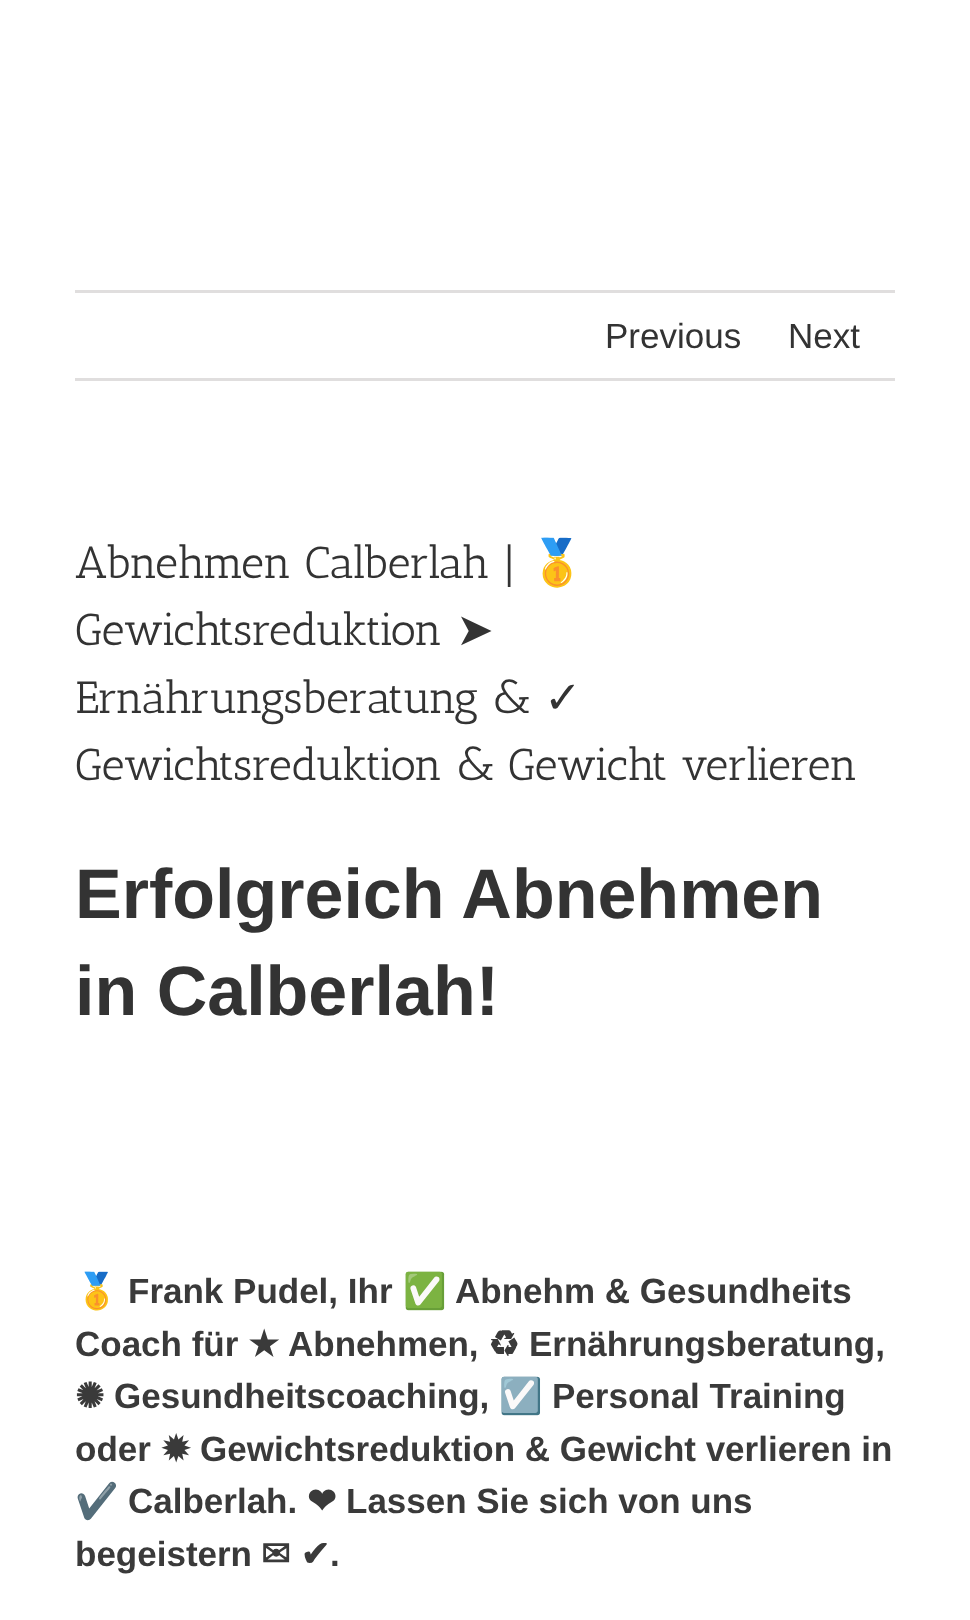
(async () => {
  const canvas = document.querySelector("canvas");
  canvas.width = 970;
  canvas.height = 1620;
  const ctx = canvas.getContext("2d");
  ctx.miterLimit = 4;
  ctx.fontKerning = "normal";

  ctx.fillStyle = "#ffffff";
  ctx.fillRect(0, 0, 970, 1620);
  ctx.fillStyle = "#e0dede";
  ctx.fillRect(75, 290, 820, 3);
  ctx.fillRect(75, 378, 820, 3);
  ctx.font = "35px Liberation Sans";
  ctx.fillStyle = "#333333";
  ctx.fillText("Previous", 605, 348);
  ctx.fillText("Next", 788, 348);
  ctx.font = "45px Antic Slab";
  ctx.fillText("Abnehmen Calberlah |", 75, 578);
  ctx.font = "45px Noto Color Emoji";
  ctx.fillText("🥇", 529, 578);
  ctx.font = "45px Antic Slab";
  ctx.fillText("Gewichtsreduktion", 75, 645);
  ctx.font = "45px DejaVu Sans";
  ctx.fillText("➤", 456, 645);
  ctx.font = "45px Antic Slab";
  ctx.fillText("Ernährungsberatung &", 75, 713);
  ctx.font = "45px DejaVu Sans";
  ctx.fillText("✓", 544, 713);
  ctx.font = "45px Antic Slab";
  ctx.fillText("Gewichtsreduktion & Gewicht verlieren", 75, 780);
  ctx.font = "bold 70px Liberation Sans";
  ctx.fillText("Erfolgreich Abnehmen", 75, 918);
  ctx.fillText("in Calberlah!", 75, 1015);
  ctx.font = "bold 35px Noto Color Emoji";
  ctx.fillStyle = "#3a3a3a";
  ctx.fillText("🥇", 75, 1303);
  ctx.font = "bold 35px Liberation Sans";
  ctx.fillText("Frank Pudel, Ihr", 128, 1303);
  ctx.font = "bold 35px Noto Color Emoji";
  ctx.fillText("✅", 403, 1303);
  ctx.font = "bold 35px Liberation Sans";
  ctx.fillText("Abnehm & Gesundheits", 455, 1303);
  ctx.fillText("Coach für", 75, 1356);
  ctx.font = "bold 35px DejaVu Sans";
  ctx.fillText("★", 248, 1356);
  ctx.font = "bold 35px Liberation Sans";
  ctx.fillText("Abnehmen,", 288, 1356);
  ctx.font = "bold 35px DejaVu Sans";
  ctx.fillText("♻", 488, 1356);
  ctx.font = "bold 35px Liberation Sans";
  ctx.fillText("Ernährungsberatung,", 529, 1356);
  ctx.font = "bold 35px DejaVu Sans";
  ctx.fillText("✺", 75, 1408);
  ctx.font = "bold 35px Liberation Sans";
  ctx.fillText("Gesundheitscoaching,", 114, 1408);
  ctx.font = "bold 35px Noto Color Emoji";
  ctx.fillText("☑️", 499, 1408);
  ctx.font = "bold 35px Liberation Sans";
  ctx.fillText("Personal Training", 552, 1408);
  ctx.fillText("oder", 75, 1461);
  ctx.font = "bold 35px DejaVu Sans";
  ctx.fillText("✹", 161, 1461);
  ctx.font = "bold 35px Liberation Sans";
  ctx.fillText("Gewichtsreduktion & Gewicht verlieren in", 200, 1461);
  ctx.font = "bold 35px Noto Color Emoji";
  ctx.fillText("✔️", 75, 1513);
  ctx.font = "bold 35px Liberation Sans";
  ctx.fillText("Calberlah.", 128, 1513);
  ctx.font = "bold 35px DejaVu Sans";
  ctx.fillText("❤", 307, 1513);
  ctx.font = "bold 35px Liberation Sans";
  ctx.fillText("Lassen Sie sich von uns", 346, 1513);
  ctx.fillText("begeistern", 75, 1566);
  ctx.wordSpacing = "-1px";
  ctx.font = "bold 35px DejaVu Sans";
  ctx.fillText("✉ ✔", 261, 1566);
  ctx.wordSpacing = "0px";
  ctx.font = "bold 35px Liberation Sans";
  ctx.fillText(".", 330, 1566);
})();
